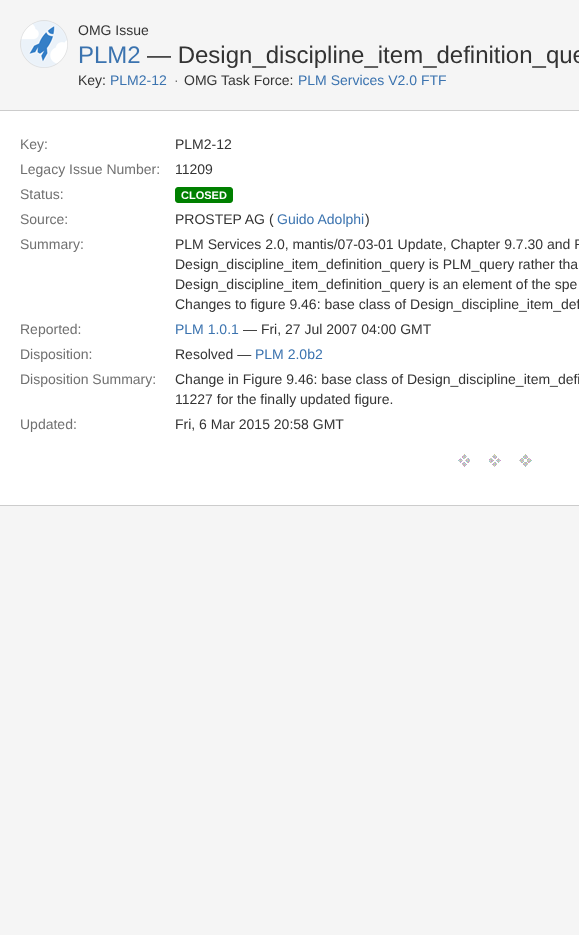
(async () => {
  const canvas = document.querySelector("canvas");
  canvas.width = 579;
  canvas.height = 935;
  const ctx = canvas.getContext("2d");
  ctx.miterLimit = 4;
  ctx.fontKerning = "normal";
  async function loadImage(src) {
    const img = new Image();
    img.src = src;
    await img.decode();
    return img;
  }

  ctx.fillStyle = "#f5f5f5";
  ctx.fillRect(0, 0, 579, 935);
  ctx.drawImage(await loadImage("img/1.png"), 20, 20, 48, 48);
  for (const [x, y, w, h, color] of [
    [0, 111, 579, 394, "#ffffff"],
    [0, 110, 579, 1, "#cccccc"],
    [0, 505, 579, 1, "#cccccc"],
  ]) {
    ctx.fillStyle = color;
    ctx.fillRect(x, y, w, h);
  }
  ctx.fillStyle = "#008000";
  ctx.beginPath();
  ctx.roundRect(175.5, 187.5, 57, 15, 2.5);
  ctx.fill();
  ctx.strokeStyle = "#008000";
  ctx.stroke();
  ctx.drawImage(await loadImage("img/2.png"), 458, 454, 74, 13);
  ctx.font = "14px Liberation Sans";
  ctx.fillStyle = "#333333";
  ctx.fillText("OMG Issue", 78, 35);
  ctx.font = "24px Liberation Sans";
  ctx.fillStyle = "#3b73af";
  ctx.fillText("PLM2", 78, 63);
  ctx.fillStyle = "#333333";
  ctx.fillText("— Design_discipline_item_definition_que", 147, 63);
  ctx.font = "14px Liberation Sans";
  ctx.fillText("Key:", 78, 85);
  ctx.fillStyle = "#3b73af";
  ctx.fillText("PLM2-12", 110, 85);
  ctx.fillStyle = "#707070";
  ctx.fillText("·", 174, 85);
  ctx.fillStyle = "#333333";
  ctx.fillText("OMG Task Force:", 184, 85);
  ctx.fillStyle = "#3b73af";
  ctx.fillText("PLM Services V2.0 FTF", 298, 85);
  ctx.fillStyle = "#707070";
  ctx.fillText("Key:", 20, 149);
  ctx.fillStyle = "#333333";
  ctx.fillText("PLM2-12", 175, 149);
  ctx.fillStyle = "#707070";
  ctx.fillText("Legacy Issue Number:", 20, 174);
  ctx.fillStyle = "#333333";
  ctx.fillText("11209", 175, 174);
  ctx.fillStyle = "#707070";
  ctx.fillText("Status:", 20, 199);
  ctx.font = "bold 11px Liberation Sans";
  ctx.fillStyle = "#ffffff";
  ctx.fillText("CLOSED", 181, 199);
  ctx.font = "14px Liberation Sans";
  ctx.fillStyle = "#707070";
  ctx.fillText("Source:", 20, 224);
  ctx.fillStyle = "#333333";
  ctx.fillText("PROSTEP AG (", 175, 224);
  ctx.fillStyle = "#3b73af";
  ctx.fillText("Guido Adolphi", 277, 224);
  ctx.fillStyle = "#333333";
  ctx.fillText(")", 365, 224);
  ctx.fillStyle = "#707070";
  ctx.fillText("Summary:", 20, 249);
  ctx.fillStyle = "#333333";
  for (const [text, x, y] of [
    ["PLM Services 2.0, mantis/07-03-01 Update, Chapter 9.7.30 and F", 175, 249],
    ["Design_discipline_item_definition_query is PLM_query rather tha", 175, 269],
    ["Design_discipline_item_definition_query is an element of the spe", 175, 289],
    ["Changes to figure 9.46: base class of Design_discipline_item_def", 175, 309],
  ]) {
    ctx.fillText(text, x, y);
  }
  ctx.fillStyle = "#707070";
  ctx.fillText("Reported:", 20, 334);
  ctx.fillStyle = "#3b73af";
  ctx.fillText("PLM 1.0.1", 175, 334);
  ctx.fillStyle = "#333333";
  ctx.fillText("— Fri, 27 Jul 2007 04:00 GMT", 243, 334);
  ctx.fillStyle = "#707070";
  ctx.fillText("Disposition:", 20, 359);
  ctx.fillStyle = "#333333";
  ctx.fillText("Resolved —", 175, 359);
  ctx.fillStyle = "#3b73af";
  ctx.fillText("PLM 2.0b2", 255, 359);
  ctx.fillStyle = "#707070";
  ctx.fillText("Disposition Summary:", 20, 384);
  ctx.fillStyle = "#333333";
  ctx.fillText("Change in Figure 9.46: base class of Design_discipline_item_defi", 175, 384);
  ctx.fillText("11227 for the finally updated figure.", 175, 404);
  ctx.fillStyle = "#707070";
  ctx.fillText("Updated:", 20, 429);
  ctx.fillStyle = "#333333";
  ctx.fillText("Fri, 6 Mar 2015 20:58 GMT", 175, 429);
})();
